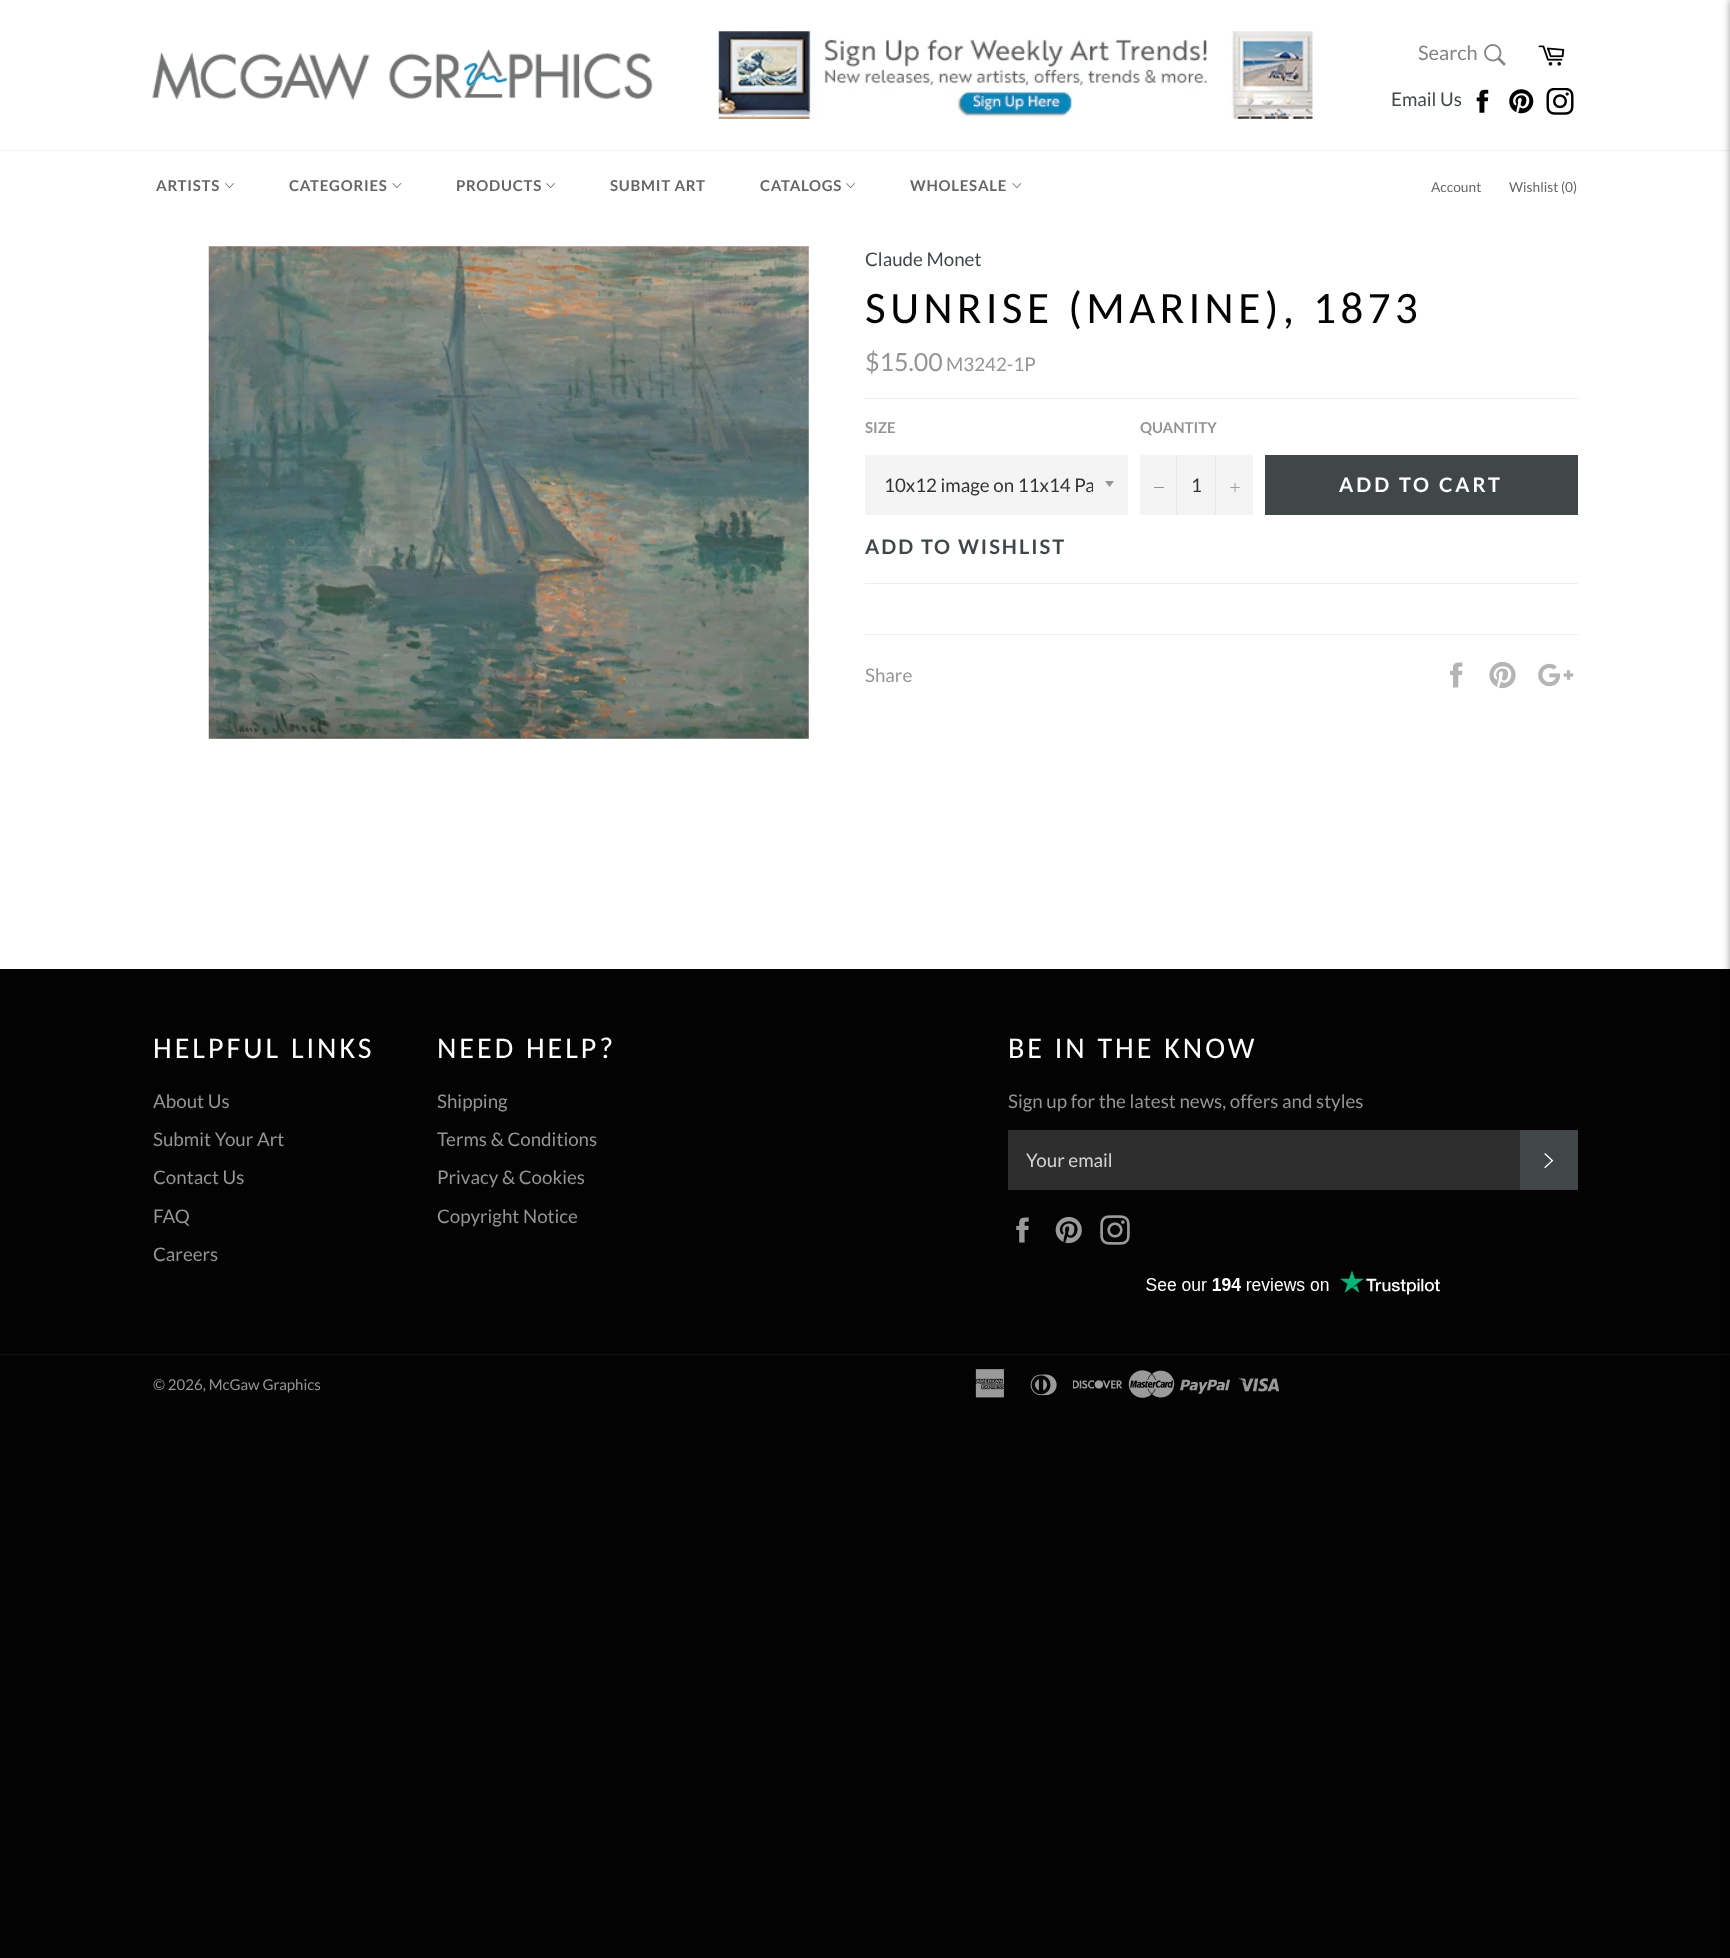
(async () => {
  const canvas = document.querySelector("canvas");
  canvas.width = 1730;
  canvas.height = 1958;
  const ctx = canvas.getContext("2d");
  ctx.miterLimit = 4;
  ctx.fontKerning = "normal";
  async function loadImage(src) {
    const img = new Image();
    img.src = src;
    await img.decode();
    return img;
  }
  let path;

  ctx.fillStyle = "#030303";
  ctx.fillRect(0, 0, 1730, 1958);
  ctx.fillStyle = "#ffffff";
  ctx.fillRect(0, 0, 1730, 969);
  ctx.drawImage(await loadImage("img/1.png"), 152, 49, 501, 51);
  ctx.drawImage(await loadImage("img/2.png"), 718, 31, 595, 88);
  ctx.drawImage(await loadImage("img/3.png"), 1484, 44, 22, 22);
  ctx.drawImage(await loadImage("img/4.png"), 1538, 45, 27, 21);
  ctx.drawImage(await loadImage("img/5.png"), 1476, 89, 13, 24);
  ctx.drawImage(await loadImage("img/6.png"), 1509, 89, 25, 25);
  ctx.drawImage(await loadImage("img/7.png"), 1546, 88, 28, 27);
  ctx.fillStyle = "#f2f2f2";
  ctx.fillRect(0, 150, 1730, 1);
  ctx.drawImage(await loadImage("img/8.png"), 225, 183, 9, 6);
  ctx.drawImage(await loadImage("img/9.png"), 392, 183, 10, 6);
  ctx.drawImage(await loadImage("img/10.png"), 546, 183, 9, 6);
  ctx.drawImage(await loadImage("img/10.png"), 846, 183, 9, 6);
  ctx.drawImage(await loadImage("img/9.png"), 1012, 183, 10, 6);
  ctx.drawImage(await loadImage("img/11.png"), 208, 246, 601, 493);
  ctx.fillStyle = "#eeeeee";
  ctx.fillRect(865, 398, 713, 1);
  ctx.fillStyle = "#f4f4f4";
  ctx.fillRect(865, 455, 263, 60);
  ctx.fillStyle = "#959595";
  path = new Path2D("M1105 481L1109.5 487L1114 481Z");
  ctx.fill(path);
  for (const [x, y, w, h, color] of [
    [1140, 455, 113, 60, "#f4f4f4"],
    [1176, 455, 1, 60, "#e7e7e7"],
    [1154, 487, 10, 1, "#959595"],
    [1215, 455, 1, 60, "#e7e7e7"],
  ]) {
    ctx.fillStyle = color;
    ctx.fillRect(x, y, w, h);
  }
  ctx.drawImage(await loadImage("img/12.png"), 1230, 483, 10, 10);
  for (const [x, y, w, h, color] of [
    [1265, 455, 313, 60, "#414749"],
    [865, 583, 713, 1, "#eeeeee"],
    [865, 634, 713, 1, "#eeeeee"],
  ]) {
    ctx.fillStyle = color;
    ctx.fillRect(x, y, w, h);
  }
  ctx.drawImage(await loadImage("img/13.png"), 1450, 662, 13, 26);
  ctx.drawImage(await loadImage("img/14.png"), 1489, 661, 27, 28);
  ctx.drawImage(await loadImage("img/15.png"), 1538, 663, 36, 24);
  ctx.fillStyle = "#2e2e2e";
  ctx.fillRect(1008, 1130, 512, 60);
  ctx.fillStyle = "#414749";
  ctx.fillRect(1520, 1130, 58, 60);
  ctx.drawImage(await loadImage("img/16.png"), 1544, 1153, 10, 16);
  ctx.drawImage(await loadImage("img/17.png"), 1016, 1217, 13, 26);
  ctx.drawImage(await loadImage("img/18.png"), 1055, 1216, 27, 28);
  ctx.drawImage(await loadImage("img/19.png"), 1100, 1215, 30, 30);
  ctx.drawImage(await loadImage("img/20.png"), 1146, 1270, 294, 25);
  ctx.fillStyle = "#101010";
  ctx.fillRect(0, 1354, 1730, 1);
  ctx.drawImage(await loadImage("img/21.png"), 975, 1369, 30, 29);
  ctx.drawImage(await loadImage("img/22.png"), 1030, 1374, 27, 22);
  ctx.drawImage(await loadImage("img/23.png"), 1073, 1380, 50, 9);
  ctx.drawImage(await loadImage("img/24.png"), 1128, 1370, 47, 28);
  ctx.drawImage(await loadImage("img/25.png"), 1180, 1379, 50, 15);
  ctx.drawImage(await loadImage("img/26.png"), 1238, 1378, 42, 14);
  ctx.fillStyle = "rgba(0, 0, 0, 0.5)";
  ctx.filter = "blur(4.5px)";
  ctx.beginPath();
  ctx.rect(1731, 0, 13, 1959);
  ctx.fill();
  ctx.filter = "none";
  ctx.font = "20px Lato";
  ctx.fillStyle = "#868484";
  ctx.fillText("Search", 1418, 60);
  ctx.font = "18.75px Lato";
  ctx.fillStyle = "#414749";
  ctx.fillText("Email Us", 1391, 106);
  ctx.letterSpacing = "0.75px";
  ctx.font = "bold 15px Lato";
  ctx.fillStyle = "#666666";
  for (const [text, x, y] of [
    ["ARTISTS", 156, 191],
    ["CATEGORIES", 289, 191],
    ["PRODUCTS", 456, 191],
    ["SUBMIT ART", 610, 191],
    ["CATALOGS", 760, 191],
    ["WHOLESALE", 910, 191],
  ]) {
    ctx.fillText(text, x, y);
  }
  ctx.letterSpacing = "0px";
  ctx.font = "13.75px Lato";
  ctx.fillText("Account", 1431, 192);
  ctx.fillText("Wishlist (0)", 1509, 192);
  ctx.font = "18.75px Lato";
  ctx.fillStyle = "#414749";
  ctx.fillText("Claude Monet", 865, 266);
  ctx.letterSpacing = "4.5px";
  ctx.font = "45px Carlito";
  ctx.fillStyle = "#030303";
  ctx.fillText("SUNRISE (MARINE), 1873", 865, 323);
  ctx.letterSpacing = "0px";
  ctx.font = "25px Lato";
  ctx.fillStyle = "#959595";
  ctx.fillText("$15.00", 865, 371);
  ctx.font = "18.75px Lato";
  ctx.fillText("M3242-1P", 946, 371);
  ctx.font = "bold 15px Lato";
  ctx.fillText("SIZE", 865, 433);
  ctx.save();
  ctx.beginPath();
  ctx.rect(884, 473, 209, 25);
  ctx.clip();
  ctx.font = "18.75px Lato";
  ctx.fillStyle = "#333333";
  ctx.fillText("10x12 image on 11x14 Pa", 884, 492);
  ctx.restore();
  ctx.fillText("QUANTITY", 1140, 433);
  ctx.font = "18.75px Lato";
  ctx.fillStyle = "#333333";
  ctx.fillText("1", 1191, 492);
  ctx.letterSpacing = "3px";
  ctx.font = "bold 20px Lato";
  ctx.fillStyle = "#ffffff";
  ctx.fillText("ADD TO CART", 1339, 492);
  ctx.letterSpacing = "2px";
  ctx.fillStyle = "#414749";
  ctx.fillText("ADD TO WISHLIST", 865, 554);
  ctx.letterSpacing = "0px";
  ctx.font = "18.75px Lato";
  ctx.fillStyle = "#959595";
  ctx.fillText("Share", 865, 682);
  ctx.letterSpacing = "3px";
  ctx.font = "30px Carlito";
  ctx.fillStyle = "#ffffff";
  ctx.fillText("HELPFUL LINKS", 153, 1058);
  ctx.letterSpacing = "0px";
  ctx.font = "18.75px Lato";
  ctx.fillStyle = "#959595";
  for (const [text, x, y] of [
    ["About Us", 153, 1108],
    ["Submit Your Art", 153, 1146],
    ["Contact Us", 153, 1184],
    ["FAQ", 153, 1223],
    ["Careers", 153, 1261],
  ]) {
    ctx.fillText(text, x, y);
  }
  ctx.letterSpacing = "3px";
  ctx.font = "30px Carlito";
  ctx.fillStyle = "#ffffff";
  ctx.fillText("NEED HELP?", 437, 1058);
  ctx.letterSpacing = "0px";
  ctx.font = "18.75px Lato";
  ctx.fillStyle = "#959595";
  for (const [text, x, y] of [
    ["Shipping", 437, 1108],
    ["Terms & Conditions", 437, 1146],
    ["Privacy & Cookies", 437, 1184],
    ["Copyright Notice", 437, 1223],
  ]) {
    ctx.fillText(text, x, y);
  }
  ctx.letterSpacing = "3px";
  ctx.font = "30px Carlito";
  ctx.fillStyle = "#ffffff";
  ctx.fillText("BE IN THE KNOW", 1008, 1058);
  ctx.letterSpacing = "0px";
  ctx.font = "18.75px Lato";
  ctx.fillStyle = "#959595";
  ctx.fillText("Sign up for the latest news, offers and styles", 1008, 1108);
  ctx.fillStyle = "#d5d5d5";
  ctx.fillText("Your email", 1026, 1167);
  ctx.font = "15px Lato";
  ctx.fillStyle = "#959595";
  ctx.fillText("© 2026, McGaw Graphics", 153, 1390);
})();
